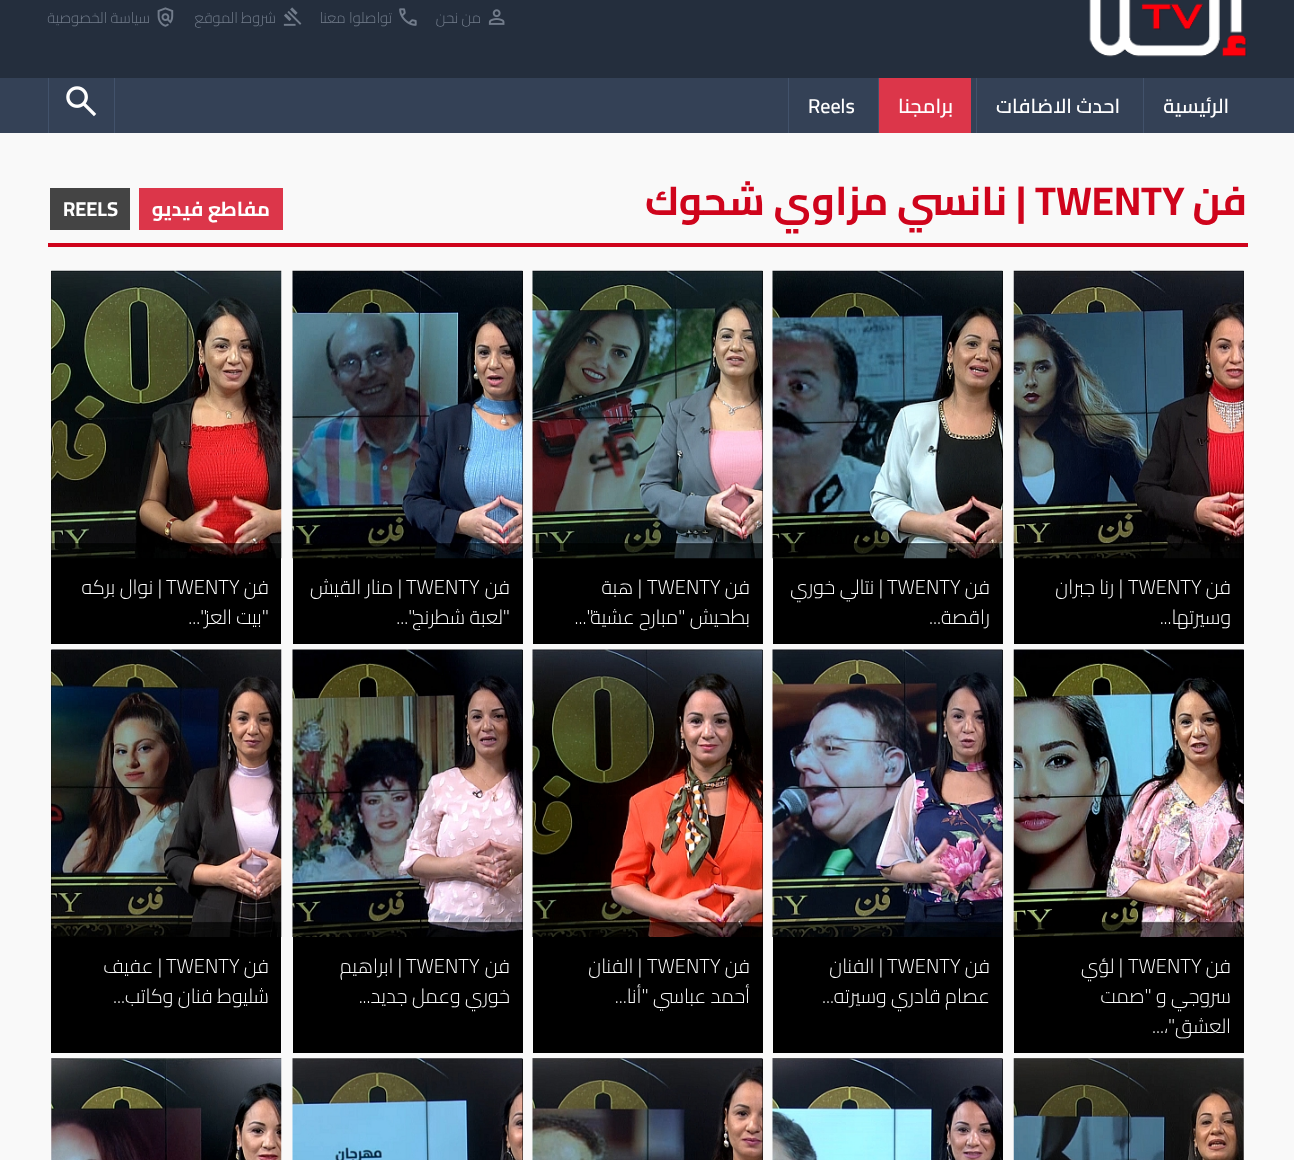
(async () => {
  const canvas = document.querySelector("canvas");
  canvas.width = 1294;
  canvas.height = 1160;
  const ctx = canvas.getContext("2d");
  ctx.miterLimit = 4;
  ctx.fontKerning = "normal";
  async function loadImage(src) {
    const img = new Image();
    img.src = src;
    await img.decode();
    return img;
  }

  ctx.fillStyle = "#f9f9f9";
  ctx.fillRect(0, 0, 1294, 1160);
  ctx.fillStyle = "#242e3d";
  ctx.fillRect(0, 0, 1294, 78);
  ctx.drawImage(await loadImage("img/1.png"), 1089, 0, 158, 57);
  ctx.drawImage(await loadImage("img/2.png"), 488, 9, 17, 16);
  ctx.drawImage(await loadImage("img/3.png"), 399, 8, 18, 18);
  ctx.drawImage(await loadImage("img/4.png"), 283, 7, 19, 19);
  ctx.drawImage(await loadImage("img/5.png"), 157, 7, 17, 20);
  for (const [x, y, w, h, color] of [
    [0, 78, 1294, 55, "#344156"],
    [1143, 78, 1, 55, "#42526b"],
    [976, 78, 1, 55, "#42526b"],
    [879, 78, 92, 55, "#dc364a"],
    [878, 78, 1, 55, "#42526b"],
    [788, 78, 1, 55, "#42526b"],
    [114, 78, 1, 55, "#42526b"],
    [48, 78, 1, 55, "#42526b"],
  ]) {
    ctx.fillStyle = color;
    ctx.fillRect(x, y, w, h);
  }
  ctx.drawImage(await loadImage("img/6.png"), 66, 86, 31, 31);
  for (const [x, y, w, h, color] of [
    [48, 243, 1200, 4, "#cf041c"],
    [139, 188, 144, 42, "#dc364a"],
    [50, 188, 80, 42, "#444444"],
    [1014, 271, 230, 373, "#000000"],
  ]) {
    ctx.fillStyle = color;
    ctx.fillRect(x, y, w, h);
  }
  ctx.drawImage(await loadImage("img/7.png"), 1013, 270, 231, 289);
  ctx.fillRect(773, 271, 230, 373);
  ctx.drawImage(await loadImage("img/8.png"), 772, 270, 231, 289);
  ctx.fillRect(533, 271, 230, 373);
  ctx.drawImage(await loadImage("img/9.png"), 532, 270, 231, 289);
  ctx.fillRect(293, 271, 230, 373);
  ctx.drawImage(await loadImage("img/10.png"), 292, 270, 231, 289);
  ctx.fillRect(51, 271, 230, 373);
  ctx.drawImage(await loadImage("img/11.png"), 51, 270, 231, 289);
  ctx.fillRect(1014, 650, 230, 403);
  ctx.drawImage(await loadImage("img/12.png"), 1013, 649, 231, 288);
  ctx.fillRect(773, 650, 230, 403);
  ctx.drawImage(await loadImage("img/13.png"), 772, 649, 231, 288);
  ctx.fillRect(533, 650, 230, 403);
  ctx.drawImage(await loadImage("img/14.png"), 532, 649, 231, 288);
  ctx.fillRect(293, 650, 230, 403);
  ctx.drawImage(await loadImage("img/15.png"), 292, 649, 231, 288);
  ctx.fillRect(51, 650, 230, 403);
  ctx.drawImage(await loadImage("img/16.png"), 51, 649, 231, 288);
  ctx.drawImage(await loadImage("img/17.png"), 1013, 1058, 231, 102);
  ctx.fillRect(1002, 1059, 1, 101);
  ctx.drawImage(await loadImage("img/18.png"), 772, 1058, 231, 102);
  ctx.fillRect(762, 1059, 1, 101);
  ctx.drawImage(await loadImage("img/19.png"), 532, 1058, 231, 102);
  ctx.fillRect(522, 1059, 1, 101);
  ctx.drawImage(await loadImage("img/20.png"), 292, 1058, 231, 102);
  ctx.drawImage(await loadImage("img/21.png"), 51, 1058, 231, 102);
  ctx.direction = "rtl";
  ctx.font = "300 15px Cairo";
  ctx.fillStyle = "#727c8b";
  for (const [text, x, y] of [
    ["من نحن", 481, 23],
    ["تواصلوا معنا", 392, 23],
    ["شروط الموقع", 276, 23],
    ["سياسة الخصوصية", 150, 23],
  ]) {
    ctx.fillText(text, x, y);
  }
  ctx.font = "600 20px Cairo";
  ctx.fillStyle = "#ffffff";
  for (const [text, x, y] of [
    ["الرئيسية", 1229, 113],
    ["احدث الاضافات", 1120, 113],
    ["برامجنا", 953, 113],
  ]) {
    ctx.fillText(text, x, y);
  }
  ctx.direction = "ltr";
  ctx.fillText("Reels", 808, 113);
  ctx.direction = "rtl";
  ctx.font = "bold 40px Cairo";
  ctx.fillStyle = "#cf041c";
  ctx.fillText("فن", 1247, 215);
  ctx.direction = "ltr";
  ctx.fillText("TWENTY", 1035, 215);
  ctx.direction = "rtl";
  ctx.fillText("| نانسي مزاوي شحوك", 1026, 215);
  ctx.font = "bold 20px Cairo";
  ctx.fillStyle = "#ffffff";
  ctx.fillText("مفاطع فيديو", 270, 216);
  ctx.direction = "ltr";
  ctx.fillText("REELS", 63, 216);
  ctx.direction = "rtl";
  ctx.font = "300 20px Cairo";
  ctx.fillText("فن", 1231, 594);
  ctx.direction = "ltr";
  ctx.fillText("TWENTY", 1128, 594);
  ctx.direction = "rtl";
  for (const [text, x, y] of [
    ["| رنا جبران", 1123, 594],
    ["وسيرتها...", 1231, 624],
    ["فن", 990, 594],
  ]) {
    ctx.fillText(text, x, y);
  }
  ctx.direction = "ltr";
  ctx.fillText("TWENTY", 887, 594);
  ctx.direction = "rtl";
  for (const [text, x, y] of [
    ["| نتالي خوري", 883, 594],
    ["راقصة...", 990, 624],
    ["فن", 750, 594],
  ]) {
    ctx.fillText(text, x, y);
  }
  ctx.direction = "ltr";
  ctx.fillText("TWENTY", 647, 594);
  ctx.direction = "rtl";
  for (const [text, x, y] of [
    ["| هبة", 642, 594],
    ["بطحيش \"مبارح عشية\"...", 750, 624],
    ["فن", 510, 594],
  ]) {
    ctx.fillText(text, x, y);
  }
  ctx.direction = "ltr";
  ctx.fillText("TWENTY", 406, 594);
  ctx.direction = "rtl";
  for (const [text, x, y] of [
    ["| منار القيش", 402, 594],
    ["\"لعبة شطرنج\"...", 510, 624],
    ["فن", 269, 594],
  ]) {
    ctx.fillText(text, x, y);
  }
  ctx.direction = "ltr";
  ctx.fillText("TWENTY", 166, 594);
  ctx.direction = "rtl";
  for (const [text, x, y] of [
    ["| نوال بركه", 162, 594],
    ["\"بيت العز\"...", 269, 624],
    ["فن", 1231, 973],
  ]) {
    ctx.fillText(text, x, y);
  }
  ctx.direction = "ltr";
  ctx.fillText("TWENTY", 1128, 973);
  ctx.direction = "rtl";
  for (const [text, x, y] of [
    ["| لؤي", 1123, 973],
    ["سروجي و \"صمت", 1231, 1003],
    ["العشق\"،...", 1231, 1033],
    ["فن", 990, 973],
  ]) {
    ctx.fillText(text, x, y);
  }
  ctx.direction = "ltr";
  ctx.fillText("TWENTY", 887, 973);
  ctx.direction = "rtl";
  for (const [text, x, y] of [
    ["| الفنان", 883, 973],
    ["عصام قادري وسيرته...", 990, 1003],
    ["فن", 750, 973],
  ]) {
    ctx.fillText(text, x, y);
  }
  ctx.direction = "ltr";
  ctx.fillText("TWENTY", 647, 973);
  ctx.direction = "rtl";
  for (const [text, x, y] of [
    ["| الفنان", 642, 973],
    ["أحمد عباسي \"أنا...", 750, 1003],
    ["فن", 510, 973],
  ]) {
    ctx.fillText(text, x, y);
  }
  ctx.direction = "ltr";
  ctx.fillText("TWENTY", 406, 973);
  ctx.direction = "rtl";
  for (const [text, x, y] of [
    ["| ابراهيم", 402, 973],
    ["خوري وعمل جديد...", 510, 1003],
    ["فن", 269, 973],
  ]) {
    ctx.fillText(text, x, y);
  }
  ctx.direction = "ltr";
  ctx.fillText("TWENTY", 166, 973);
  ctx.direction = "rtl";
  ctx.fillText("| عفيف", 162, 973);
  ctx.fillText("شليوط فنان وكاتب...", 269, 1003);
})();
